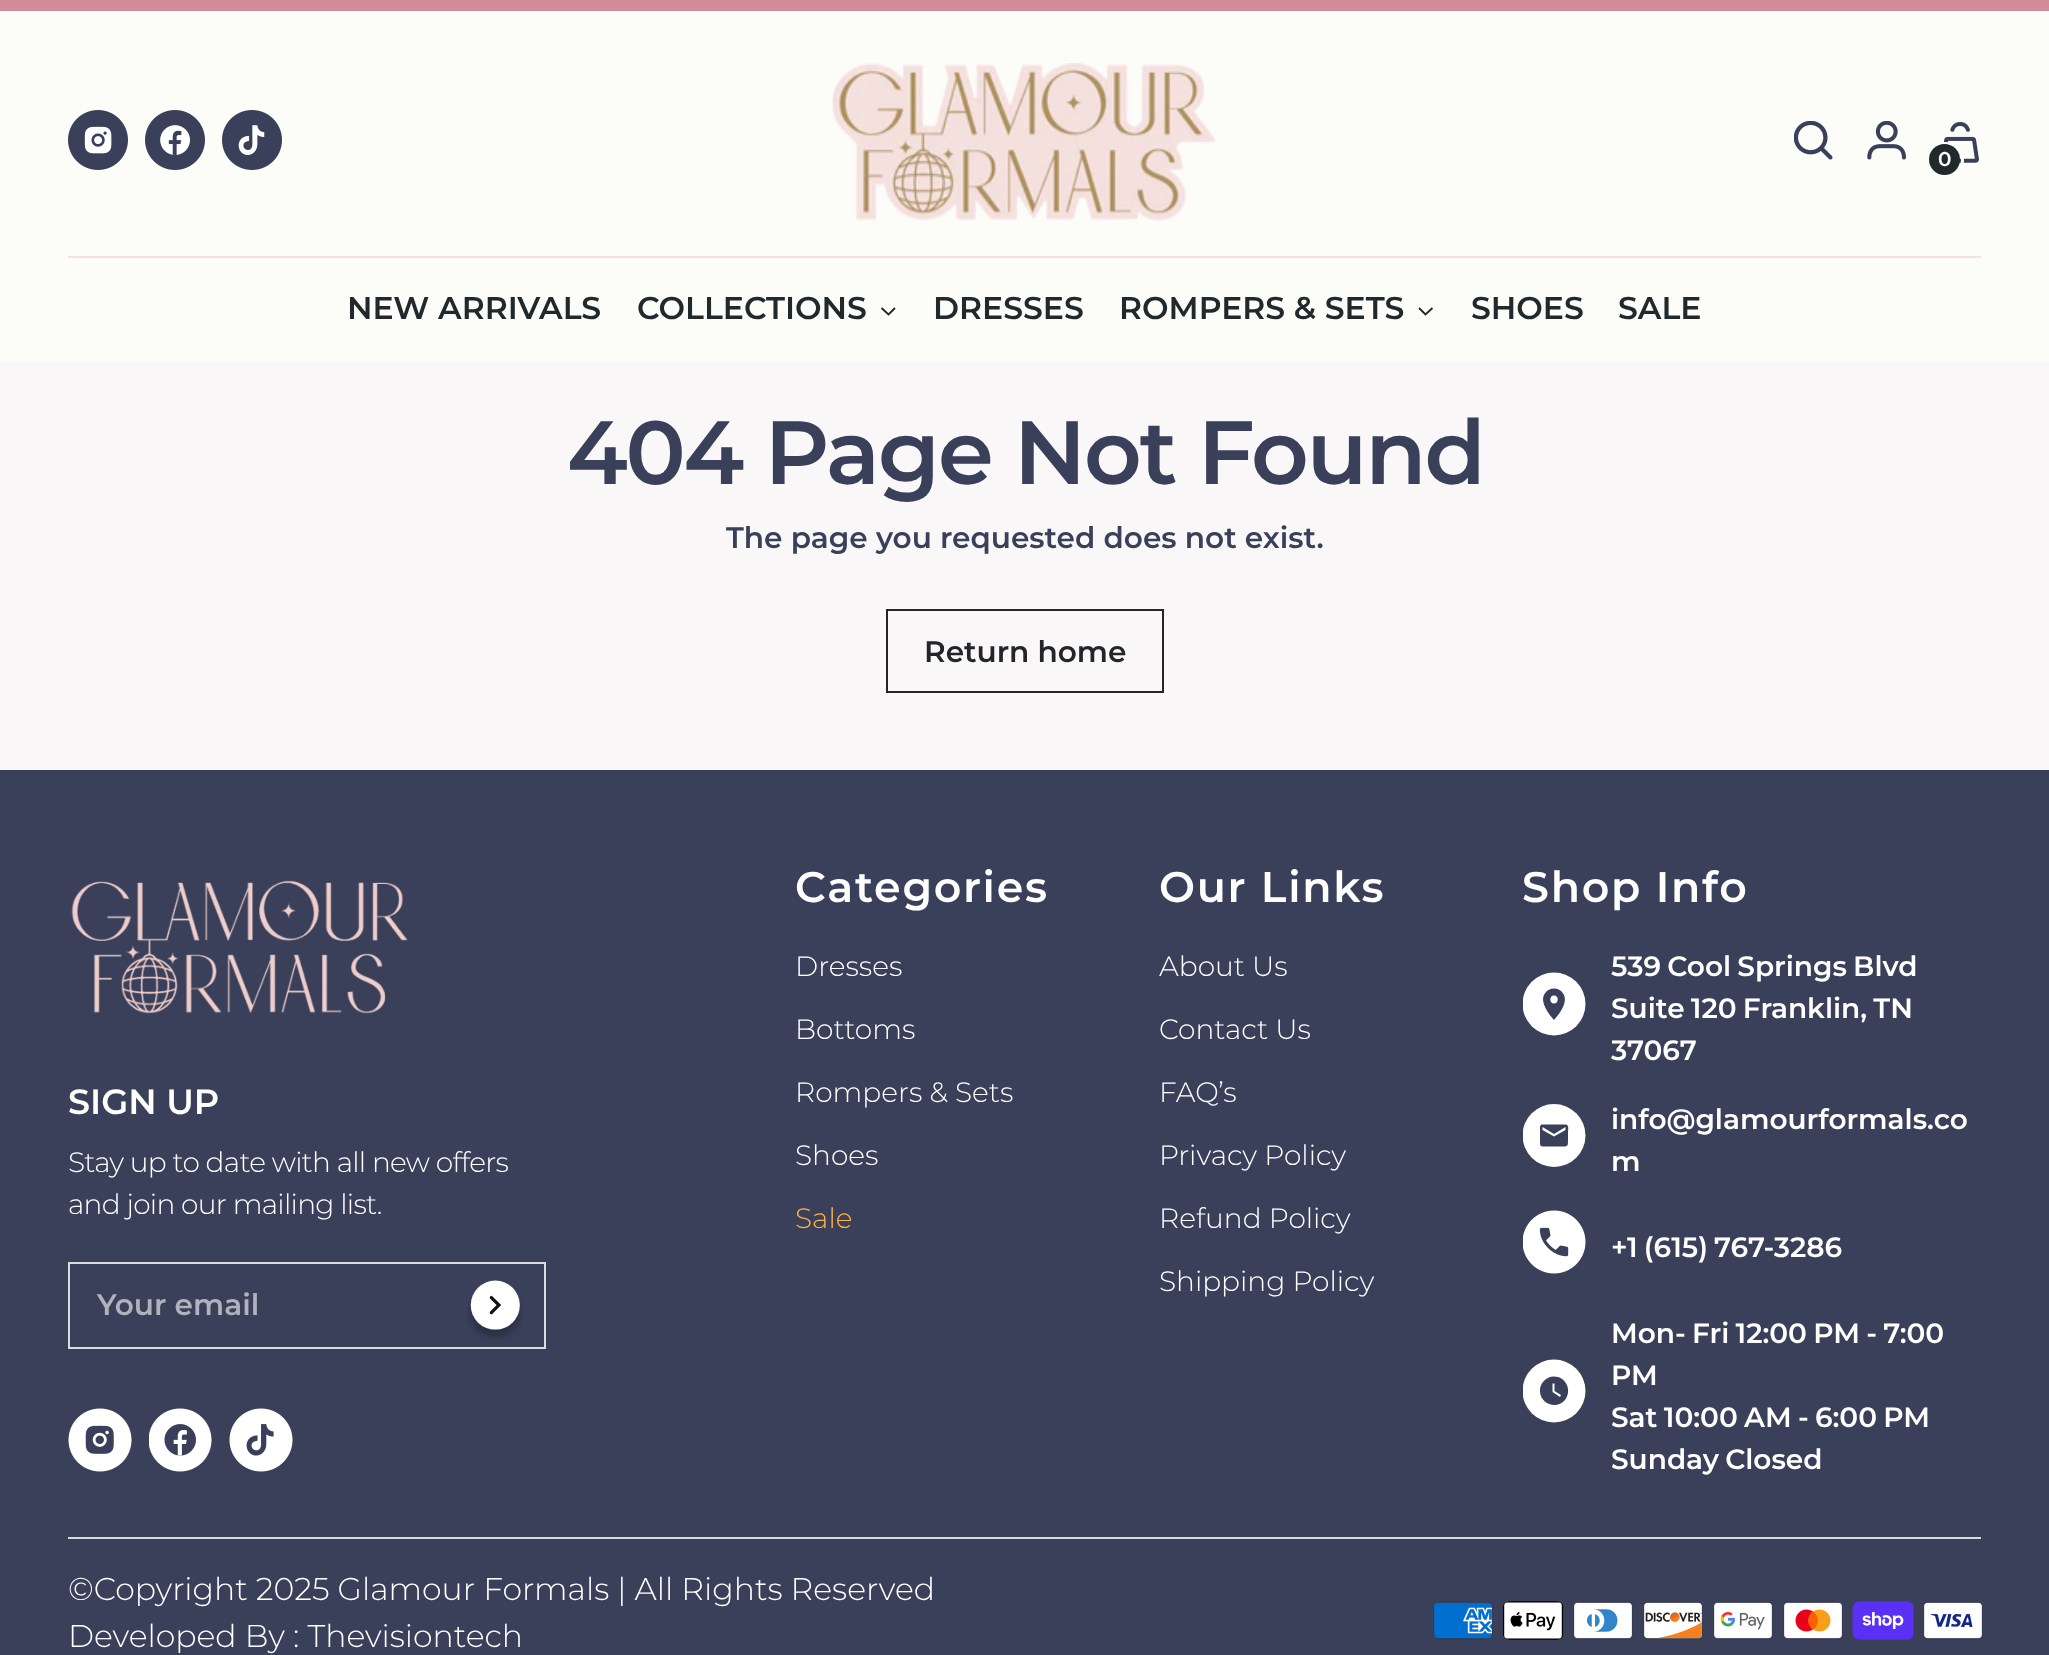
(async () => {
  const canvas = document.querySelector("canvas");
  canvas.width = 2049;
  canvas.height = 1655;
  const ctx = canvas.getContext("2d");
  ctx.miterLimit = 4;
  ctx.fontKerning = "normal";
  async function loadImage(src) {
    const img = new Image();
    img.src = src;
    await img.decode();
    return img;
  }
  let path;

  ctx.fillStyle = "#f9f7f8";
  ctx.fillRect(0, 0, 2049, 1655);
  for (const [x, y, w, h, color] of [
    [0, 0, 2049, 11, "#d18c99"],
    [0, 11, 2049, 351, "#fcfcf9"],
    [68, 256, 1913, 2, "#f5e1df"],
  ]) {
    ctx.fillStyle = color;
    ctx.fillRect(x, y, w, h);
  }
  ctx.drawImage(await loadImage("img/1.png"), 68, 110, 60, 60);
  ctx.drawImage(await loadImage("img/2.png"), 145, 110, 60, 60);
  ctx.drawImage(await loadImage("img/3.png"), 222, 110, 60, 60);
  ctx.drawImage(await loadImage("img/4.png"), 831, 63, 385, 158);
  ctx.drawImage(await loadImage("img/5.png"), 1794, 121, 39, 39);
  ctx.drawImage(await loadImage("img/6.png"), 1867, 121, 39, 39);
  ctx.drawImage(await loadImage("img/7.png"), 1943, 122, 36, 41);
  ctx.beginPath();
  ctx.arc(1945.5, 160.5, 17, 0, Math.PI * 2);
  ctx.strokeStyle = "#fcfcf9";
  ctx.lineWidth = 3;
  ctx.stroke();
  ctx.fillStyle = "#22292d";
  ctx.beginPath();
  ctx.arc(1944.5, 159.5, 15.5, 0, Math.PI * 2);
  ctx.fill();
  path = new Path2D("M881.5 308L888.5 314.5L895 308");
  ctx.strokeStyle = "#22292d";
  ctx.lineWidth = 1.9;
  ctx.stroke(path);
  path = new Path2D("M1419 308L1425.5 314.5L1432.5 308");
  ctx.stroke(path);
  ctx.strokeStyle = "#242526";
  ctx.lineWidth = 2;
  ctx.strokeRect(887, 610, 276, 82);
  ctx.fillStyle = "#3a405a";
  ctx.fillRect(0, 770, 2049, 885);
  ctx.drawImage(await loadImage("img/8.png"), 71, 880, 337, 134);
  ctx.strokeStyle = "#dddddd";
  ctx.strokeRect(69, 1263, 476, 85);
  ctx.drawImage(await loadImage("img/9.png"), 467, 1280, 56, 60);
  ctx.drawImage(await loadImage("img/10.png"), 68, 1408, 64, 64);
  ctx.drawImage(await loadImage("img/11.png"), 149, 1408, 63, 64);
  ctx.drawImage(await loadImage("img/12.png"), 229, 1408, 64, 64);
  ctx.save();
  ctx.beginPath();
  ctx.rect(1523, 971, 63, 65);
  ctx.clip();
  ctx.fillStyle = "#ffffff";
  ctx.beginPath();
  ctx.arc(1554, 1004, 31.5, 0, Math.PI * 2);
  ctx.fill();
  ctx.restore();
  path = new Path2D("M1554 1003.5C1549 1003.5 1549 995.5 1554 995.5C1559 995.5 1559 1003.5 1554 1003.5ZM1554 988.5C1546.5 988.5 1541.5 995.5 1543.5 1002.5C1545 1009 1549.5 1015 1554 1020C1558.5 1015 1563 1009 1564.5 1002.5C1566.5 995.5 1561.5 988.5 1554 988.5Z");
  ctx.fill(path);
  ctx.save();
  ctx.beginPath();
  ctx.rect(1523, 1103, 63, 64);
  ctx.clip();
  ctx.fillStyle = "#ffffff";
  ctx.beginPath();
  ctx.arc(1554, 1135.5, 31.5, 0, Math.PI * 2);
  ctx.fill();
  ctx.restore();
  path = new Path2D("M1542.5 1146.5C1539.5 1146.5 1540 1143 1540 1141V1130C1540 1128 1539.5 1125 1542 1124.5H1565.5C1569.5 1124.5 1568 1130.5 1568 1132.5V1141C1568 1146.5 1567.5 1146.5 1561.5 1146.5ZM1554 1136.5L1565.5 1130V1127L1554 1134L1542.5 1127V1130Z");
  ctx.fill(path);
  ctx.drawImage(await loadImage("img/13.png"), 1523, 1210, 63, 64);
  ctx.save();
  ctx.beginPath();
  ctx.rect(1523, 1358, 63, 65);
  ctx.clip();
  ctx.fillStyle = "#ffffff";
  ctx.beginPath();
  ctx.arc(1554, 1391, 31.5, 0, Math.PI * 2);
  ctx.fill();
  ctx.restore();
  path = new Path2D("M1554 1376.5C1546 1376.5 1539 1384 1540 1392C1541 1404.5 1557 1409.5 1565 1400C1572.5 1390.5 1566 1376.5 1554 1376.5ZM1560 1397L1552.5 1392V1383.5H1554.5V1391L1561 1395Z");
  ctx.fill(path);
  ctx.fillStyle = "#d9d9d9";
  ctx.fillRect(68, 1537, 1913, 2);
  ctx.drawImage(await loadImage("img/14.png"), 1433, 1601, 60, 39);
  ctx.drawImage(await loadImage("img/15.png"), 1502, 1601, 62, 39);
  ctx.drawImage(await loadImage("img/16.png"), 1573, 1601, 60, 39);
  ctx.drawImage(await loadImage("img/17.png"), 1643, 1601, 60, 39);
  ctx.drawImage(await loadImage("img/18.png"), 1713, 1601, 60, 39);
  ctx.drawImage(await loadImage("img/19.png"), 1783, 1601, 60, 39);
  ctx.drawImage(await loadImage("img/20.png"), 1852, 1601, 62, 39);
  ctx.drawImage(await loadImage("img/21.png"), 1923, 1601, 60, 39);
  ctx.font = "600 20px Montserrat";
  ctx.fillStyle = "#fcfcf9";
  ctx.fillText("0", 1938, 166);
  ctx.font = "600 31.5px Montserrat";
  ctx.fillStyle = "#22292d";
  for (const [text, x, y] of [
    ["NEW ARRIVALS", 347, 319],
    ["COLLECTIONS", 637, 319],
    ["DRESSES", 933, 319],
    ["ROMPERS & SETS", 1119, 319],
    ["SHOES", 1471, 319],
    ["SALE", 1618, 319],
  ]) {
    ctx.fillText(text, x, y);
  }
  ctx.letterSpacing = "-2.25px";
  ctx.font = "600 89.5px Montserrat";
  ctx.fillStyle = "#3a405a";
  ctx.fillText("404 Page Not Found", 567, 484);
  ctx.letterSpacing = "0px";
  ctx.font = "600 29.6px Montserrat";
  ctx.fillText("The page you requested does not exist.", 726, 548);
  ctx.fillStyle = "#242526";
  ctx.fillText("Return home", 924, 662);
  ctx.font = "600 35px Montserrat";
  ctx.fillStyle = "#ffffff";
  ctx.fillText("SIGN UP", 68, 1114);
  ctx.letterSpacing = "-0.7px";
  ctx.font = "300 28px Montserrat";
  ctx.fillText("Stay up to date with all new offers", 68, 1172);
  ctx.fillText("and join our mailing list.", 68, 1214);
  ctx.letterSpacing = "0px";
  ctx.font = "600 29.6px Montserrat";
  ctx.fillStyle = "#b0b3bd";
  ctx.fillText("Your email", 97, 1315);
  ctx.letterSpacing = "1.75px";
  ctx.font = "600 42.75px Montserrat";
  ctx.fillStyle = "#ffffff";
  ctx.fillText("Categories", 795, 902);
  ctx.letterSpacing = "0px";
  ctx.font = "300 28px Montserrat";
  for (const [text, x, y] of [
    ["Dresses", 795, 976],
    ["Bottoms", 795, 1039],
    ["Rompers & Sets", 795, 1102],
    ["Shoes", 795, 1165],
  ]) {
    ctx.fillText(text, x, y);
  }
  ctx.fillStyle = "#ffb144";
  ctx.fillText("Sale", 795, 1228);
  ctx.letterSpacing = "1.75px";
  ctx.font = "600 42.75px Montserrat";
  ctx.fillStyle = "#ffffff";
  ctx.fillText("Our Links", 1159, 902);
  ctx.letterSpacing = "0px";
  ctx.font = "300 28px Montserrat";
  for (const [text, x, y] of [
    ["About Us", 1159, 976],
    ["Contact Us", 1159, 1039],
    ["FAQ’s", 1159, 1102],
    ["Privacy Policy", 1159, 1165],
    ["Refund Policy", 1159, 1228],
    ["Shipping Policy", 1159, 1291],
  ]) {
    ctx.fillText(text, x, y);
  }
  ctx.letterSpacing = "1.75px";
  ctx.font = "600 42.75px Montserrat";
  ctx.fillText("Shop Info", 1522, 902);
  ctx.letterSpacing = "0px";
  ctx.wordSpacing = "-1.5px";
  ctx.font = "600 28px Montserrat";
  ctx.fillText("539 Cool Springs Blvd", 1611, 976);
  ctx.fillText("Suite 120 Franklin, TN", 1611, 1018);
  ctx.wordSpacing = "0px";
  for (const [text, x, y] of [
    ["37067", 1611, 1060],
    ["info@glamourformals.co", 1611, 1129],
    ["m", 1611, 1171],
  ]) {
    ctx.fillText(text, x, y);
  }
  ctx.wordSpacing = "-1.5px";
  ctx.fillText("+1 (615) 767-3286", 1611, 1257);
  ctx.fillText("Mon- Fri 12:00 PM - 7:00", 1611, 1343);
  ctx.wordSpacing = "0px";
  ctx.fillText("PM", 1611, 1385);
  ctx.wordSpacing = "-1.5px";
  ctx.fillText("Sat 10:00 AM - 6:00 PM", 1611, 1427);
  ctx.fillText("Sunday Closed", 1611, 1469);
  ctx.wordSpacing = "0px";
  ctx.font = "300 31.5px Montserrat";
  ctx.fillText("©Copyright 2025 Glamour Formals | All Rights Reserved", 68, 1600);
  ctx.fillText("Developed By : Thevisiontech", 68, 1647);
})();
